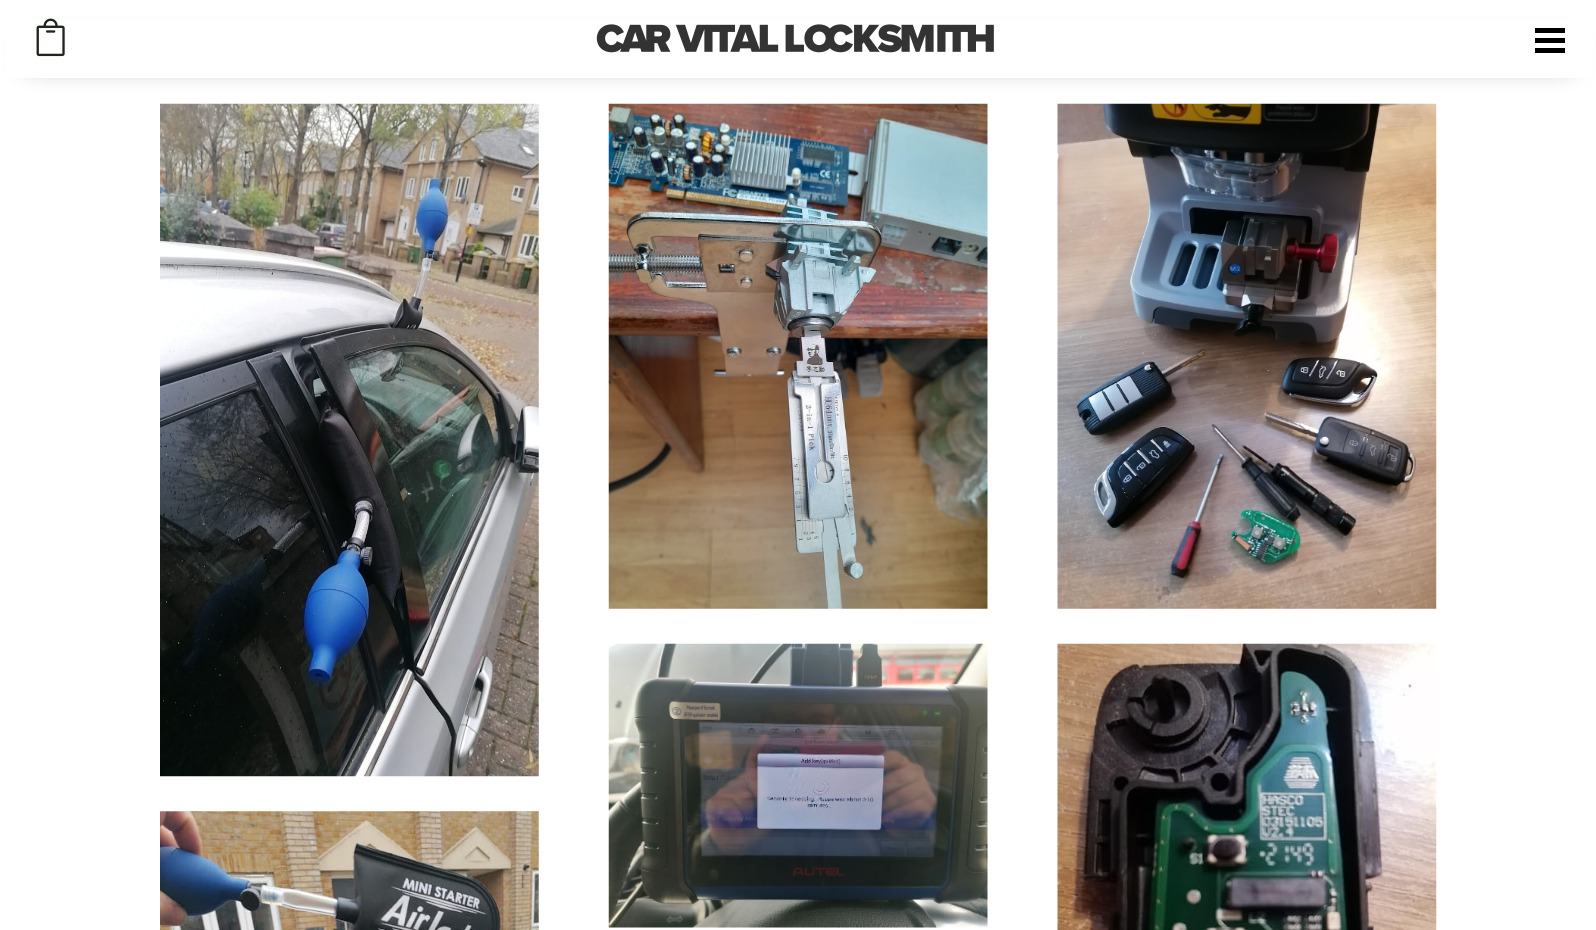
(async () => {
  const canvas = document.querySelector("canvas");
  canvas.width = 1596;
  canvas.height = 930;
  const ctx = canvas.getContext("2d");
  ctx.miterLimit = 4;
  ctx.fontKerning = "normal";
  async function loadImage(src) {
    const img = new Image();
    img.src = src;
    await img.decode();
    return img;
  }

  ctx.fillStyle = "#ffffff";
  ctx.fillRect(0, 0, 1596, 930);
  ctx.fillStyle = "rgba(0, 0, 0, 0.3)";
  ctx.filter = "blur(11px)";
  ctx.beginPath();
  ctx.rect(25, 39, 1549, 30);
  ctx.fill();
  ctx.filter = "none";
  ctx.fillStyle = "#ffffff";
  ctx.fillRect(6, 19, 1587, 59);
  ctx.drawImage(await loadImage("img/1.png"), 36, 18, 29, 39);
  ctx.drawImage(await loadImage("img/2.png"), 596, 24, 398, 29);
  ctx.drawImage(await loadImage("img/3.png"), 160, 103, 379, 674);
  ctx.drawImage(await loadImage("img/4.png"), 160, 811, 379, 119);
  ctx.drawImage(await loadImage("img/5.png"), 608, 103, 380, 506);
  ctx.drawImage(await loadImage("img/6.png"), 608, 643, 380, 285);
  ctx.drawImage(await loadImage("img/7.png"), 1057, 103, 380, 506);
  ctx.drawImage(await loadImage("img/8.png"), 1057, 643, 380, 287);
  for (const [x, y, w, h, color] of [
    [1535, 28, 30, 5, "#000000"],
    [1535, 38, 30, 5, "#000000"],
    [1535, 48, 30, 5, "#000000"],
  ]) {
    ctx.fillStyle = color;
    ctx.fillRect(x, y, w, h);
  }
})();
